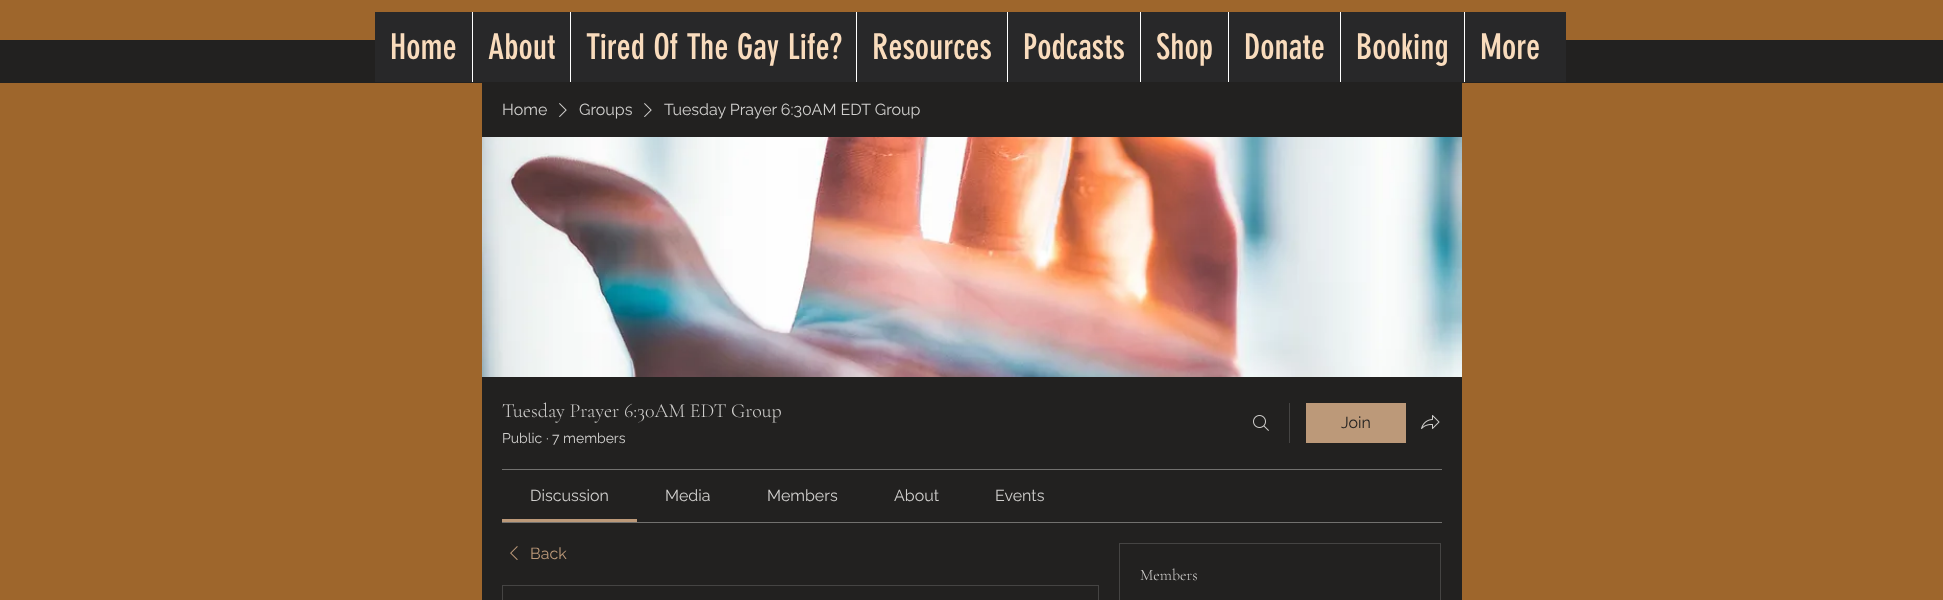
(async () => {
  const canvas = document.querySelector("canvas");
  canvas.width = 1943;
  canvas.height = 600;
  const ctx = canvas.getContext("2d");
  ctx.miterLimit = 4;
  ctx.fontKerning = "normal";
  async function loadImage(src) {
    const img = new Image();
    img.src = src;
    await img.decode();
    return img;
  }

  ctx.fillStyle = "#9e662c";
  ctx.fillRect(0, 0, 1943, 600);
  for (const [x, y, w, h, color] of [
    [0, 40, 1943, 43, "#222120"],
    [375, 12, 1191, 70, "#282829"],
    [472, 12, 1, 70, "#ffffff"],
    [570, 12, 1, 70, "#ffffff"],
    [856, 12, 1, 70, "#ffffff"],
    [1007, 12, 1, 70, "#ffffff"],
    [1140, 12, 1, 70, "#ffffff"],
    [1228, 12, 1, 70, "#ffffff"],
    [1340, 12, 1, 70, "#ffffff"],
    [1464, 12, 1, 70, "#ffffff"],
    [482, 83, 980, 517, "#222120"],
  ]) {
    ctx.fillStyle = color;
    ctx.fillRect(x, y, w, h);
  }
  ctx.drawImage(await loadImage("img/1.png"), 559, 103, 8, 14);
  ctx.drawImage(await loadImage("img/1.png"), 644, 103, 8, 14);
  ctx.drawImage(await loadImage("img/2.png"), 482, 137, 980, 240);
  ctx.drawImage(await loadImage("img/3.png"), 1253, 415, 16, 16);
  ctx.fillStyle = "#454443";
  ctx.fillRect(1289, 403, 1, 40);
  ctx.fillStyle = "#bc9979";
  ctx.fillRect(1306, 403, 100, 40);
  ctx.drawImage(await loadImage("img/4.png"), 1421, 415, 19, 14);
  for (const [x, y, w, h, color] of [
    [502, 469, 940, 1, "#72716f"],
    [502, 522, 940, 1, "#72716f"],
    [502, 519, 135, 3, "#bc9979"],
  ]) {
    ctx.fillStyle = color;
    ctx.fillRect(x, y, w, h);
  }
  ctx.drawImage(await loadImage("img/5.png"), 510, 546, 8, 14);
  ctx.strokeStyle = "#454443";
  ctx.strokeRect(502.5, 585.5, 596, 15);
  ctx.strokeRect(1119.5, 543.5, 321, 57);
  ctx.font = "35px 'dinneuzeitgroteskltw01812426'";
  ctx.fillStyle = "#f9dcbd";
  for (const [text, x, y] of [
    ["Home", 390, 59],
    ["About", 488, 59],
    ["Tired Of The Gay Life?", 586, 59],
    ["Resources", 872, 59],
    ["Podcasts", 1023, 59],
    ["Shop", 1156, 59],
    ["Donate", 1244, 59],
    ["Booking", 1356, 59],
    ["More", 1480, 59],
  ]) {
    ctx.fillText(text, x, y);
  }
  ctx.font = "16px Raleway";
  ctx.fillStyle = "#d0cfcd";
  for (const [text, x, y] of [
    ["Home", 502, 115],
    ["Groups", 579, 115],
    ["Tuesday Prayer 6:30AM EDT Group", 664, 115],
  ]) {
    ctx.fillText(text, x, y);
  }
  ctx.font = "300 20px Cormorant Garamond";
  ctx.fillText("Tuesday Prayer 6:30AM EDT Group", 502, 417);
  ctx.font = "14px Raleway";
  for (const [text, x, y] of [
    ["Public", 502, 443],
    ["·", 546, 443],
    ["7 members", 552, 443],
  ]) {
    ctx.fillText(text, x, y);
  }
  ctx.font = "16px Raleway";
  ctx.fillStyle = "#222120";
  ctx.fillText("Join", 1341, 428);
  ctx.fillStyle = "#d0cfcd";
  for (const [text, x, y] of [
    ["Discussion", 530, 501],
    ["Media", 665, 501],
    ["Members", 767, 501],
    ["About", 894, 501],
    ["Events", 995, 501],
  ]) {
    ctx.fillText(text, x, y);
  }
  ctx.fillStyle = "#bc9979";
  ctx.fillText("Back", 530, 559);
  ctx.font = "300 16px Cormorant Garamond";
  ctx.fillStyle = "#d0cfcd";
  ctx.fillText("Members", 1140, 580);
})();
